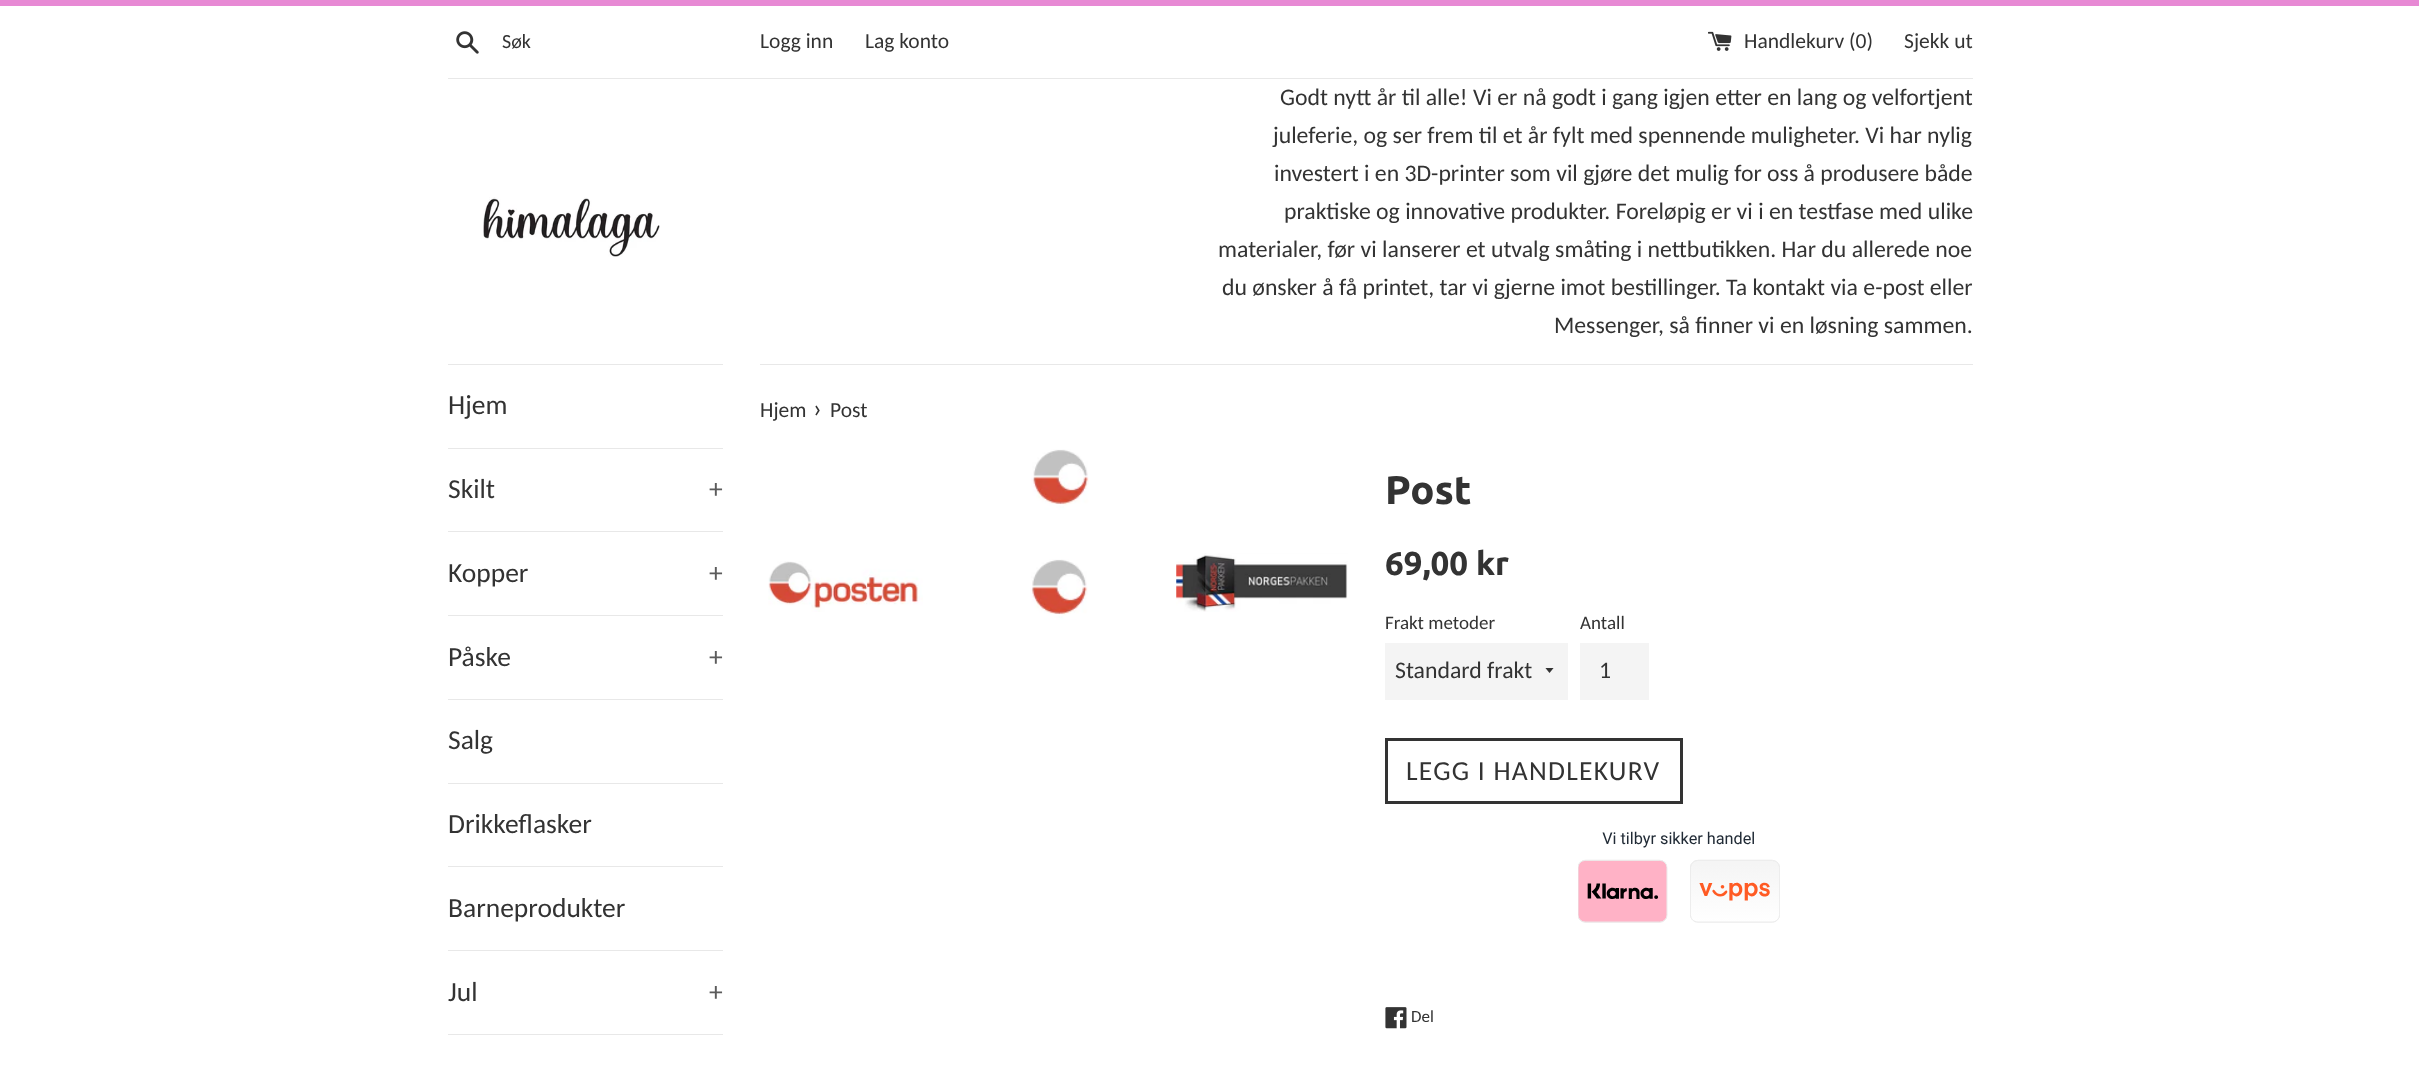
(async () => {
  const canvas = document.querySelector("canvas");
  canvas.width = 2419;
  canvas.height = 1078;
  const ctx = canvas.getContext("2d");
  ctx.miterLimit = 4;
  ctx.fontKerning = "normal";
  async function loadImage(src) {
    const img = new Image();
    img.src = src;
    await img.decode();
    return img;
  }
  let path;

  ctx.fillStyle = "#ffffff";
  ctx.fillRect(0, 0, 2419, 1078);
  ctx.fillStyle = "#e789d4";
  ctx.fillRect(0, 0, 2419, 6);
  ctx.drawImage(await loadImage("img/1.png"), 456, 31, 23, 23);
  ctx.drawImage(await loadImage("img/2.png"), 1708, 31, 24, 20);
  ctx.fillStyle = "#e8e8e8";
  ctx.fillRect(448, 78, 1525, 1);
  ctx.drawImage(await loadImage("img/3.png"), 483, 197, 177, 60);
  for (const [x, y, w, h, color] of [
    [448, 364, 275, 1, "#e8e8e8"],
    [448, 448, 275, 1, "#e8e8e8"],
    [448, 531, 275, 1, "#e8e8e8"],
    [448, 615, 275, 1, "#e8e8e8"],
    [448, 699, 275, 1, "#e8e8e8"],
    [448, 783, 275, 1, "#e8e8e8"],
    [448, 866, 275, 1, "#e8e8e8"],
    [448, 950, 275, 1, "#e8e8e8"],
    [448, 1034, 275, 1, "#e8e8e8"],
    [760, 364, 1213, 1, "#e8e8e8"],
  ]) {
    ctx.fillStyle = color;
    ctx.fillRect(x, y, w, h);
  }
  ctx.drawImage(await loadImage("img/4.png"), 1031, 449, 58, 61);
  ctx.drawImage(await loadImage("img/5.png"), 768, 561, 155, 51);
  ctx.drawImage(await loadImage("img/6.png"), 1030, 559, 58, 61);
  ctx.drawImage(await loadImage("img/7.png"), 1176, 553, 172, 59);
  ctx.fillStyle = "#f4f4f4";
  ctx.fillRect(1385, 643, 183, 57);
  ctx.save();
  ctx.beginPath();
  ctx.rect(1545, 668, 10, 6);
  ctx.clip();
  ctx.fillStyle = "#333333";
  path = new Path2D("M1545 667.5L1549.5 673L1554 667.5Z");
  ctx.fill(path);
  ctx.restore();
  ctx.fillRect(1580, 643, 69, 57);
  ctx.strokeStyle = "#333333";
  ctx.lineWidth = 3;
  ctx.strokeRect(1386.5, 739.5, 295, 63);
  ctx.drawImage(await loadImage("img/8.png"), 1578, 831, 202, 92);
  ctx.drawImage(await loadImage("img/9.png"), 1385, 1007, 22, 22);
  ctx.font = "20px Carlito";
  ctx.fillStyle = "#333333";
  ctx.fillText("Søk", 502, 48);
  ctx.font = "21.5px Carlito";
  for (const [text, x, y] of [
    ["Logg inn", 760, 48],
    ["Lag konto", 865, 48],
    ["Handlekurv (0)", 1744, 48],
    ["Sjekk ut", 1904, 48],
  ]) {
    ctx.fillText(text, x, y);
  }
  ctx.font = "23.75px Carlito";
  for (const [text, x, y] of [
    ["Godt nytt år til alle! Vi er nå godt i gang igjen etter en lang og velfortjent", 1280, 105],
    ["juleferie, og ser frem til et år fylt med spennende muligheter. Vi har nylig", 1273, 143],
    ["investert i en 3D-printer som vil gjøre det mulig for oss å produsere både", 1274, 181],
    ["praktiske og innovative produkter. Foreløpig er vi i en testfase med ulike", 1284, 219],
    ["materialer, før vi lanserer et utvalg småting i nettbutikken. Har du allerede noe", 1218, 257],
    ["du ønsker å få printet, tar vi gjerne imot bestillinger. Ta kontakt via e-post eller", 1222, 295],
    ["Messenger, så finner vi en løsning sammen.", 1554, 333],
  ]) {
    ctx.fillText(text, x, y);
  }
  ctx.font = "27.5px Carlito";
  ctx.fillText("Hjem", 448, 414);
  ctx.fillText("Skilt", 448, 498);
  ctx.fillStyle = "#5c5c5c";
  ctx.fillText("+", 709, 498);
  ctx.fillStyle = "#333333";
  ctx.fillText("Kopper", 448, 582);
  ctx.fillStyle = "#5c5c5c";
  ctx.fillText("+", 709, 582);
  ctx.fillStyle = "#333333";
  ctx.fillText("Påske", 448, 666);
  ctx.fillStyle = "#5c5c5c";
  ctx.fillText("+", 709, 666);
  ctx.fillStyle = "#333333";
  for (const [text, x, y] of [
    ["Salg", 448, 749],
    ["Drikkeflasker", 448, 833],
    ["Barneprodukter", 448, 917],
    ["Jul", 448, 1001],
  ]) {
    ctx.fillText(text, x, y);
  }
  ctx.fillStyle = "#5c5c5c";
  ctx.fillText("+", 709, 1001);
  ctx.font = "21.5px Carlito";
  ctx.fillStyle = "#333333";
  ctx.fillText("Hjem", 760, 417);
  ctx.font = "26px Carlito";
  ctx.fillText("›", 813, 417);
  ctx.font = "21.5px Carlito";
  ctx.fillText("Post", 830, 417);
  ctx.font = "bold 40px Ubuntu";
  ctx.fillText("Post", 1385, 504);
  ctx.font = "bold 33px Ubuntu";
  ctx.fillText("69,00 kr", 1385, 575);
  ctx.font = "19px Carlito";
  ctx.fillText("Frakt metoder", 1385, 629);
  ctx.font = "23.75px Carlito";
  ctx.fillText("Standard frakt", 1395, 678);
  ctx.font = "19px Carlito";
  ctx.fillText("Antall", 1580, 629);
  ctx.font = "23.75px Carlito";
  ctx.fillText("1", 1599, 678);
  ctx.letterSpacing = "1.25px";
  ctx.font = "27.5px Carlito";
  ctx.fillText("LEGG I HANDLEKURV", 1406, 780);
  ctx.letterSpacing = "0px";
  ctx.font = "17px Carlito";
  ctx.fillText("Del", 1411, 1022);
})();
